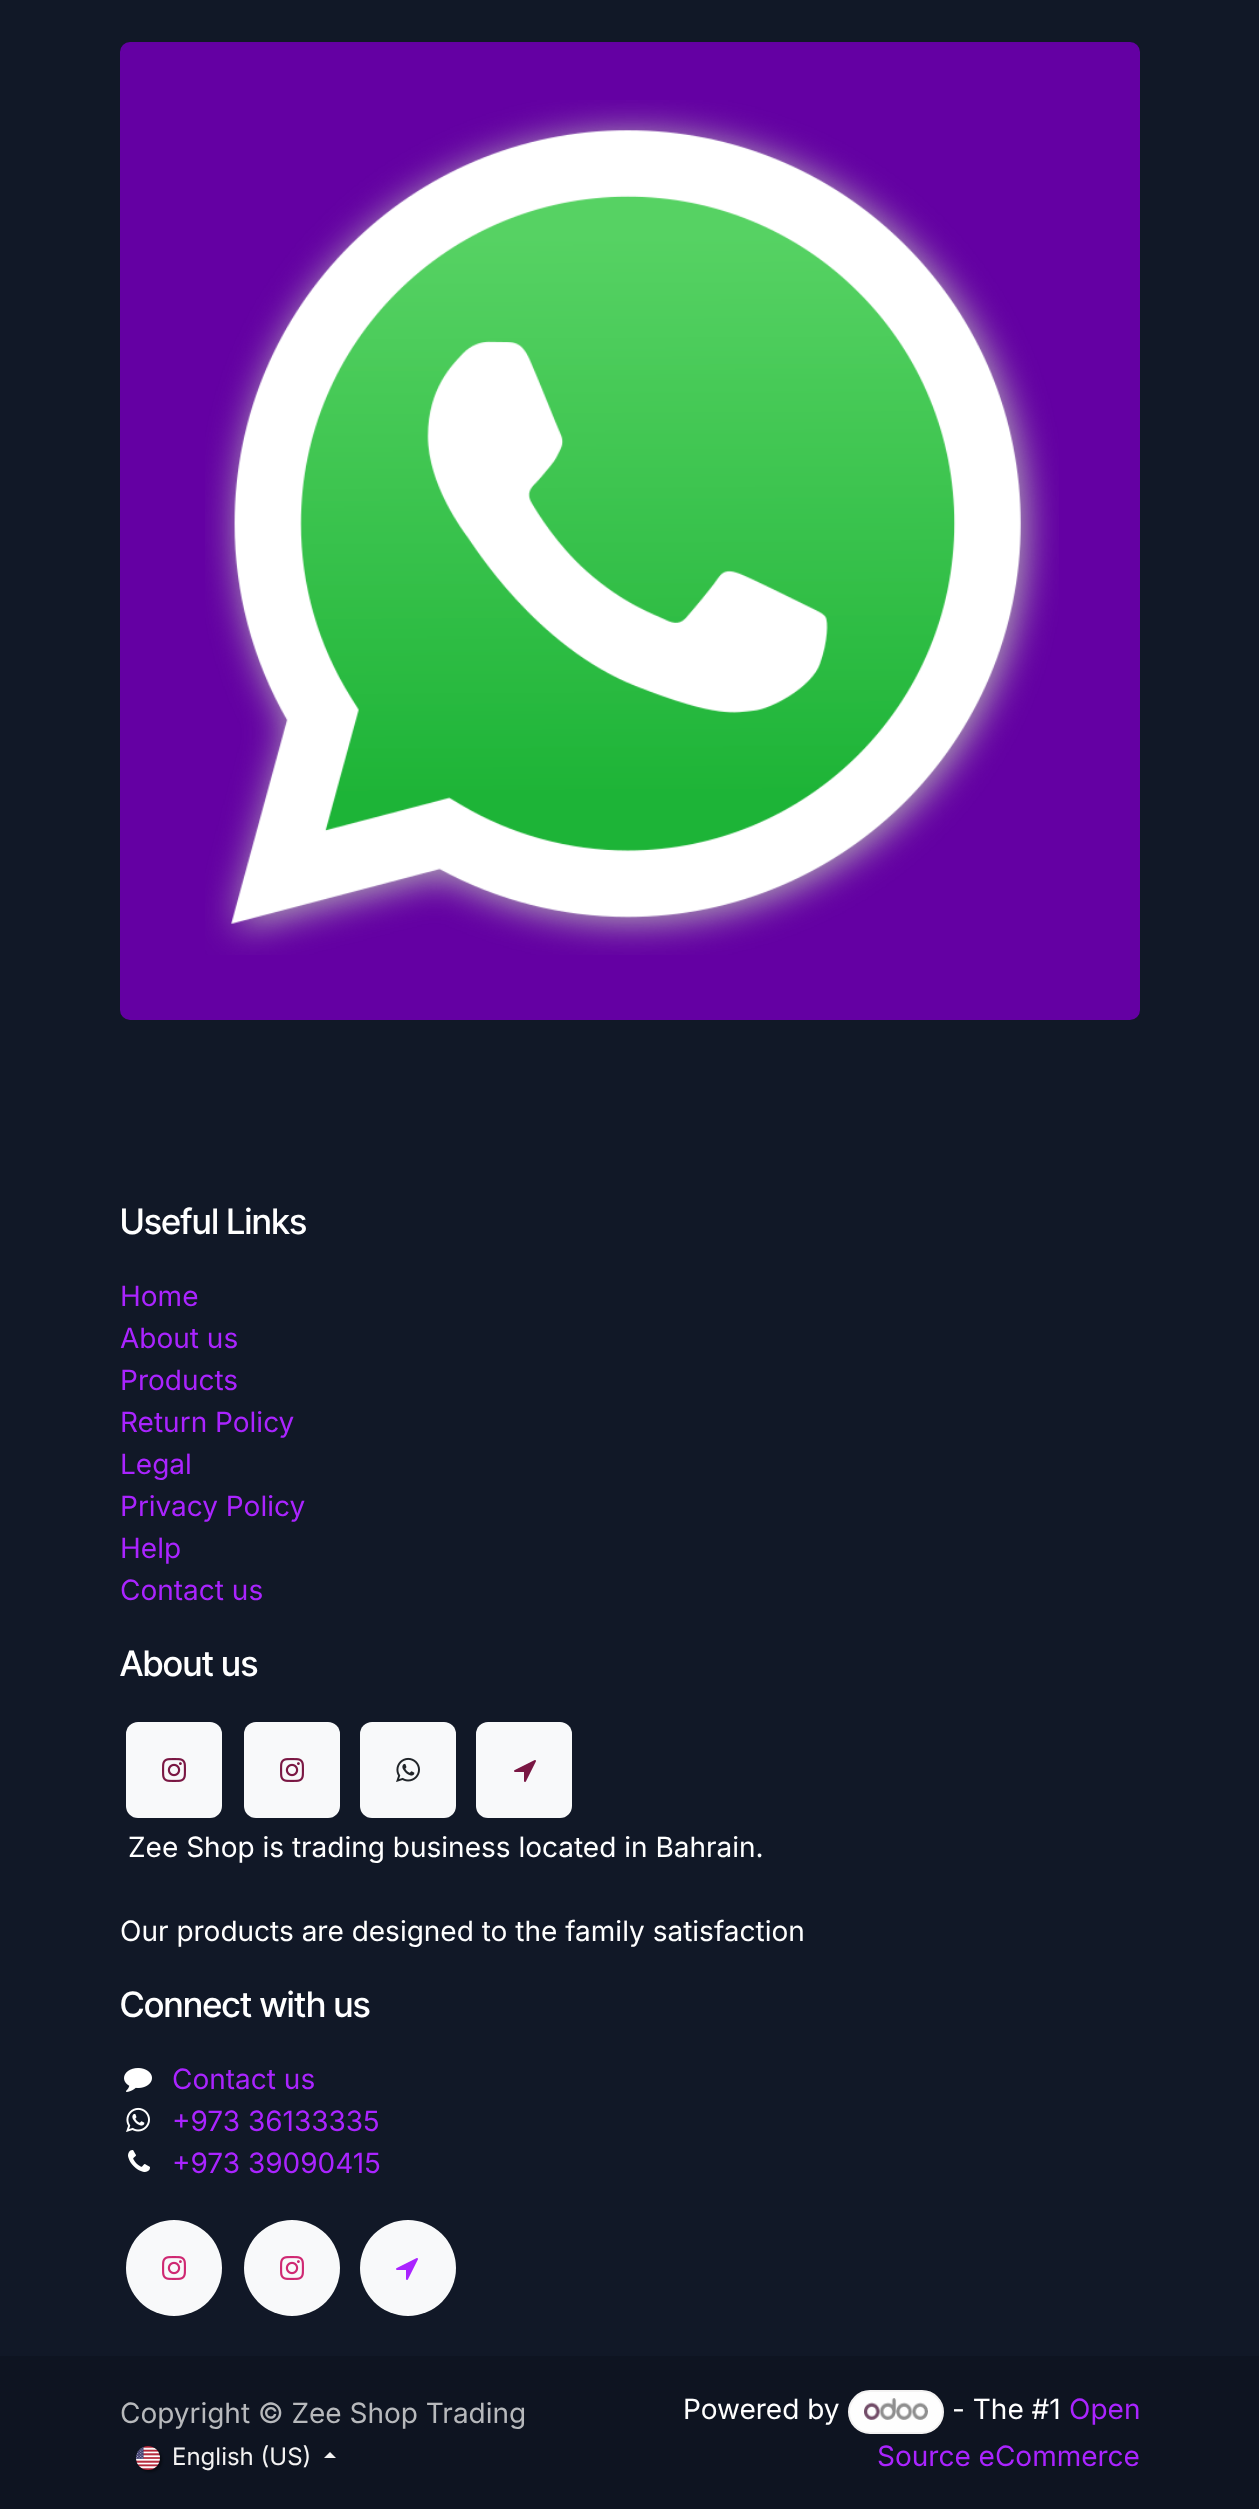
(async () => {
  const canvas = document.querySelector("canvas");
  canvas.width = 1259;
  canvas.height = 2509;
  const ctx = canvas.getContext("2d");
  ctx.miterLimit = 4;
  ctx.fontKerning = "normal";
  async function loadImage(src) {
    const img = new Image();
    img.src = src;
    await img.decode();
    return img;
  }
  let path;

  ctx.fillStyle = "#111827";
  ctx.fillRect(0, 0, 1259, 2509);
  ctx.fillStyle = "#6400a3";
  ctx.beginPath();
  ctx.roundRect(121, 43, 1018, 976, 9);
  ctx.fill();
  ctx.strokeStyle = "#6400a3";
  ctx.lineWidth = 2;
  ctx.stroke();
  ctx.drawImage(await loadImage("img/1.png"), 205, 100, 854, 855);
  ctx.fillStyle = "#f8f9fa";
  ctx.beginPath();
  ctx.roundRect(126, 1722, 96, 96, 12);
  ctx.fill();
  ctx.drawImage(await loadImage("img/2.png"), 162, 1758, 24, 24);
  ctx.beginPath();
  ctx.roundRect(244, 1722, 96, 96, 12);
  ctx.fill();
  ctx.drawImage(await loadImage("img/2.png"), 280, 1758, 24, 24);
  ctx.beginPath();
  ctx.roundRect(360, 1722, 96, 96, 12);
  ctx.fill();
  ctx.drawImage(await loadImage("img/3.png"), 396, 1757, 24, 25);
  ctx.beginPath();
  ctx.roundRect(476, 1722, 96, 96, 12);
  ctx.fill();
  ctx.drawImage(await loadImage("img/4.png"), 514, 1760, 22, 22);
  ctx.drawImage(await loadImage("img/5.png"), 124, 2068, 28, 24);
  ctx.drawImage(await loadImage("img/6.png"), 126, 2107, 24, 25);
  ctx.drawImage(await loadImage("img/7.png"), 128, 2150, 22, 22);
  ctx.beginPath();
  ctx.arc(174, 2268, 48, 0, Math.PI * 2);
  ctx.fill();
  ctx.drawImage(await loadImage("img/8.png"), 162, 2256, 24, 24);
  ctx.beginPath();
  ctx.arc(292, 2268, 48, 0, Math.PI * 2);
  ctx.fill();
  ctx.drawImage(await loadImage("img/8.png"), 280, 2256, 24, 24);
  ctx.beginPath();
  ctx.arc(408, 2268, 48, 0, Math.PI * 2);
  ctx.fill();
  ctx.drawImage(await loadImage("img/9.png"), 396, 2258, 22, 22);
  ctx.fillStyle = "#0e1421";
  ctx.fillRect(0, 2356, 1259, 153);
  ctx.fillStyle = "rgba(0, 0, 0, 0.43)";
  ctx.filter = "blur(1px)";
  ctx.beginPath();
  ctx.roundRect(138, 2448, 24, 24, 12);
  ctx.fill();
  ctx.filter = "none";
  ctx.drawImage(await loadImage("img/10.png"), 136, 2446, 24, 24);
  ctx.fillStyle = "#f3f2f2";
  path = new Path2D("M336 2458H324L330 2452Z");
  ctx.fill(path);
  ctx.fillStyle = "#fefefe";
  ctx.beginPath();
  ctx.roundRect(849, 2391, 94, 42, 21);
  ctx.fill();
  ctx.strokeStyle = "#f3f2f2";
  ctx.stroke();
  ctx.drawImage(await loadImage("img/11.png"), 864, 2398, 64, 22);
  ctx.font = "500 35px Inter Tight";
  ctx.fillStyle = "#ffffff";
  ctx.fillText("Useful Links", 120, 1234);
  ctx.font = "28px Inter";
  ctx.fillStyle = "#aa24ff";
  for (const [text, x, y] of [
    ["Home", 120, 1306],
    ["About us", 120, 1348],
    ["Products", 120, 1390],
    ["Return Policy", 120, 1432],
    ["Legal", 120, 1474],
    ["Privacy Policy", 120, 1516],
    ["Help", 120, 1558],
    ["Contact us", 120, 1600],
  ]) {
    ctx.fillText(text, x, y);
  }
  ctx.font = "500 35px Inter Tight";
  ctx.fillStyle = "#ffffff";
  ctx.fillText("About us", 120, 1676);
  ctx.font = "28px Inter";
  ctx.fillText("Zee Shop is trading business located in Bahrain.", 128, 1857);
  ctx.fillText("Our products are designed to the family satisfaction", 120, 1941);
  ctx.font = "500 35px Inter Tight";
  ctx.fillText("Connect with us", 120, 2017);
  ctx.font = "28px Inter";
  ctx.fillStyle = "#aa24ff";
  for (const [text, x, y] of [
    ["Contact us", 172, 2089],
    ["+973 36133335", 172, 2131],
    ["+973 39090415", 172, 2173],
  ]) {
    ctx.fillText(text, x, y);
  }
  ctx.fillStyle = "#b7b9bc";
  ctx.fillText("Copyright © Zee Shop Trading", 120, 2423);
  ctx.font = "24px Inter";
  ctx.fillStyle = "#f3f2f2";
  ctx.fillText("English (US)", 172, 2465);
  ctx.font = "28px Inter";
  ctx.fillStyle = "#ffffff";
  ctx.fillText("Powered by", 683, 2419);
  ctx.fillText("- The #1", 952, 2419);
  ctx.fillStyle = "#aa24ff";
  ctx.fillText("Open", 1069, 2419);
  ctx.fillText("Source eCommerce", 877, 2466);
})();
